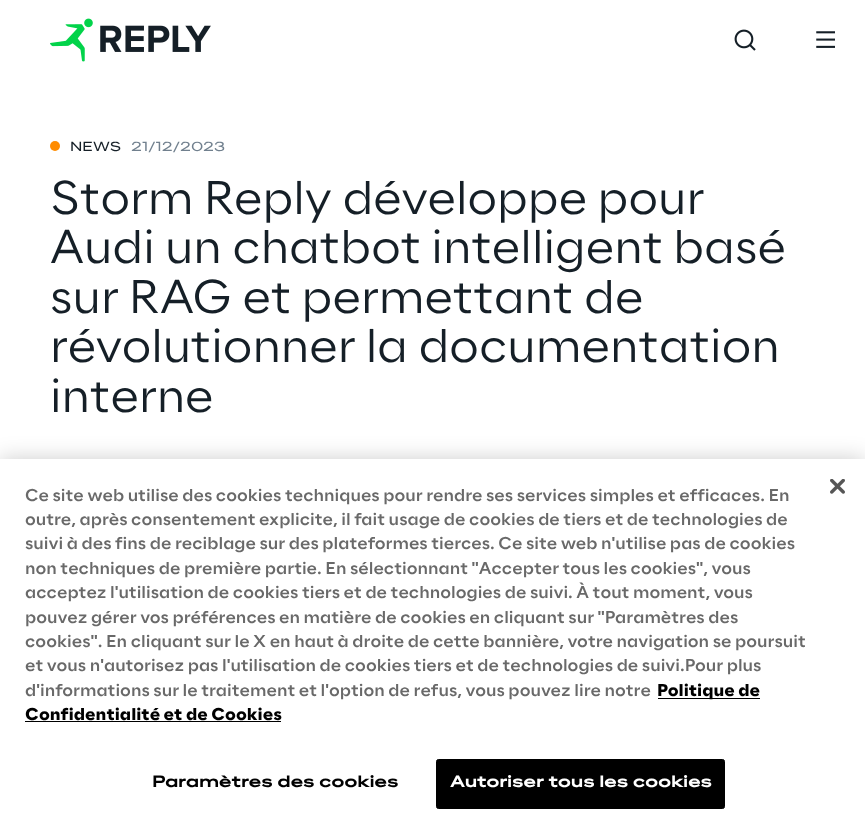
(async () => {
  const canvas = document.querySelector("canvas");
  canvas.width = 865;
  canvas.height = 833;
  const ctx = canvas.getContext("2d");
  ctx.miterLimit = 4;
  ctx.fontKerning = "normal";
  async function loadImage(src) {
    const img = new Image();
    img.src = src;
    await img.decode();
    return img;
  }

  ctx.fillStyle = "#ffffff";
  ctx.fillRect(0, 0, 865, 833);
  ctx.drawImage(await loadImage("img/1.png"), 50, 18, 161, 44);
  ctx.drawImage(await loadImage("img/2.png"), 734, 29, 22, 22);
  ctx.drawImage(await loadImage("img/3.png"), 816, 31, 19, 17);
  ctx.fillStyle = "#ff8c00";
  ctx.beginPath();
  ctx.arc(55, 146, 5, 0, Math.PI * 2);
  ctx.fill();
  ctx.fillStyle = "rgba(0, 0, 0, 0.2)";
  ctx.filter = "blur(11px)";
  ctx.beginPath();
  ctx.rect(0, 459, 865, 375);
  ctx.fill();
  ctx.filter = "none";
  ctx.fillStyle = "#ffffff";
  ctx.fillRect(0, 459, 865, 374);
  ctx.drawImage(await loadImage("img/4.png"), 830, 479, 15, 15);
  ctx.fillStyle = "#000000";
  ctx.fillRect(658, 698, 102, 1);
  ctx.fillRect(25, 721, 256, 1);
  ctx.beginPath();
  ctx.roundRect(436.5, 759.5, 288, 49, 2);
  ctx.fill();
  ctx.strokeStyle = "#000000";
  ctx.stroke();
  ctx.font = "12.5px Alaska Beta";
  ctx.fillStyle = "#151f27";
  ctx.fillText("NEWS", 70, 151);
  ctx.fillStyle = "#71808e";
  ctx.fillText("21/12/2023", 131, 151);
  ctx.font = "300 45px Alaska Beta";
  ctx.fillStyle = "#151f27";
  for (const [text, x, y] of [
    ["Storm Reply développe pour", 50, 214],
    ["Audi un chatbot intelligent basé", 50, 263],
    ["sur RAG et permettant de", 50, 313],
    ["révolutionner la documentation", 50, 362],
    ["interne", 50, 412],
  ]) {
    ctx.fillText(text, x, y);
  }
  ctx.font = "500 16.25px Alaska Beta";
  ctx.fillStyle = "#696969";
  for (const [text, x, y] of [
    ["Ce site web utilise des cookies techniques pour rendre ses services simples et efficaces. En", 25, 501],
    ["outre, après consentement explicite, il fait usage de cookies de tiers et de technologies de", 25, 525],
    ["suivi à des fins de reciblage sur des plateformes tierces. Ce site web n'utilise pas de cookies", 25, 549],
    ["non techniques de première partie. En sélectionnant \"Accepter tous les cookies\", vous", 25, 574],
    ["acceptez l'utilisation de cookies tiers et de technologies de suivi. À tout moment, vous", 25, 598],
    ["pouvez gérer vos préférences en matière de cookies en cliquant sur \"Paramètres des", 25, 623],
    ["cookies\". En cliquant sur le X en haut à droite de cette bannière, votre navigation se poursuit", 25, 647],
    ["et vous n'autorisez pas l'utilisation de cookies tiers et de technologies de suivi.Pour plus", 25, 671],
    ["d'informations sur le traitement et l'option de refus, vous pouvez lire notre", 25, 696],
  ]) {
    ctx.fillText(text, x, y);
  }
  ctx.font = "bold 16.25px Alaska Beta";
  ctx.fillStyle = "#000000";
  ctx.fillText("Politique de", 657, 696);
  ctx.fillText("Confidentialité et de Cookies", 25, 720);
  ctx.letterSpacing = "0.15px";
  ctx.font = "bold 15px 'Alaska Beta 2'";
  ctx.fillText("Paramètres des cookies", 152, 787);
  ctx.fillStyle = "#ffffff";
  ctx.fillText("Autoriser tous les cookies", 450, 787);
})();
